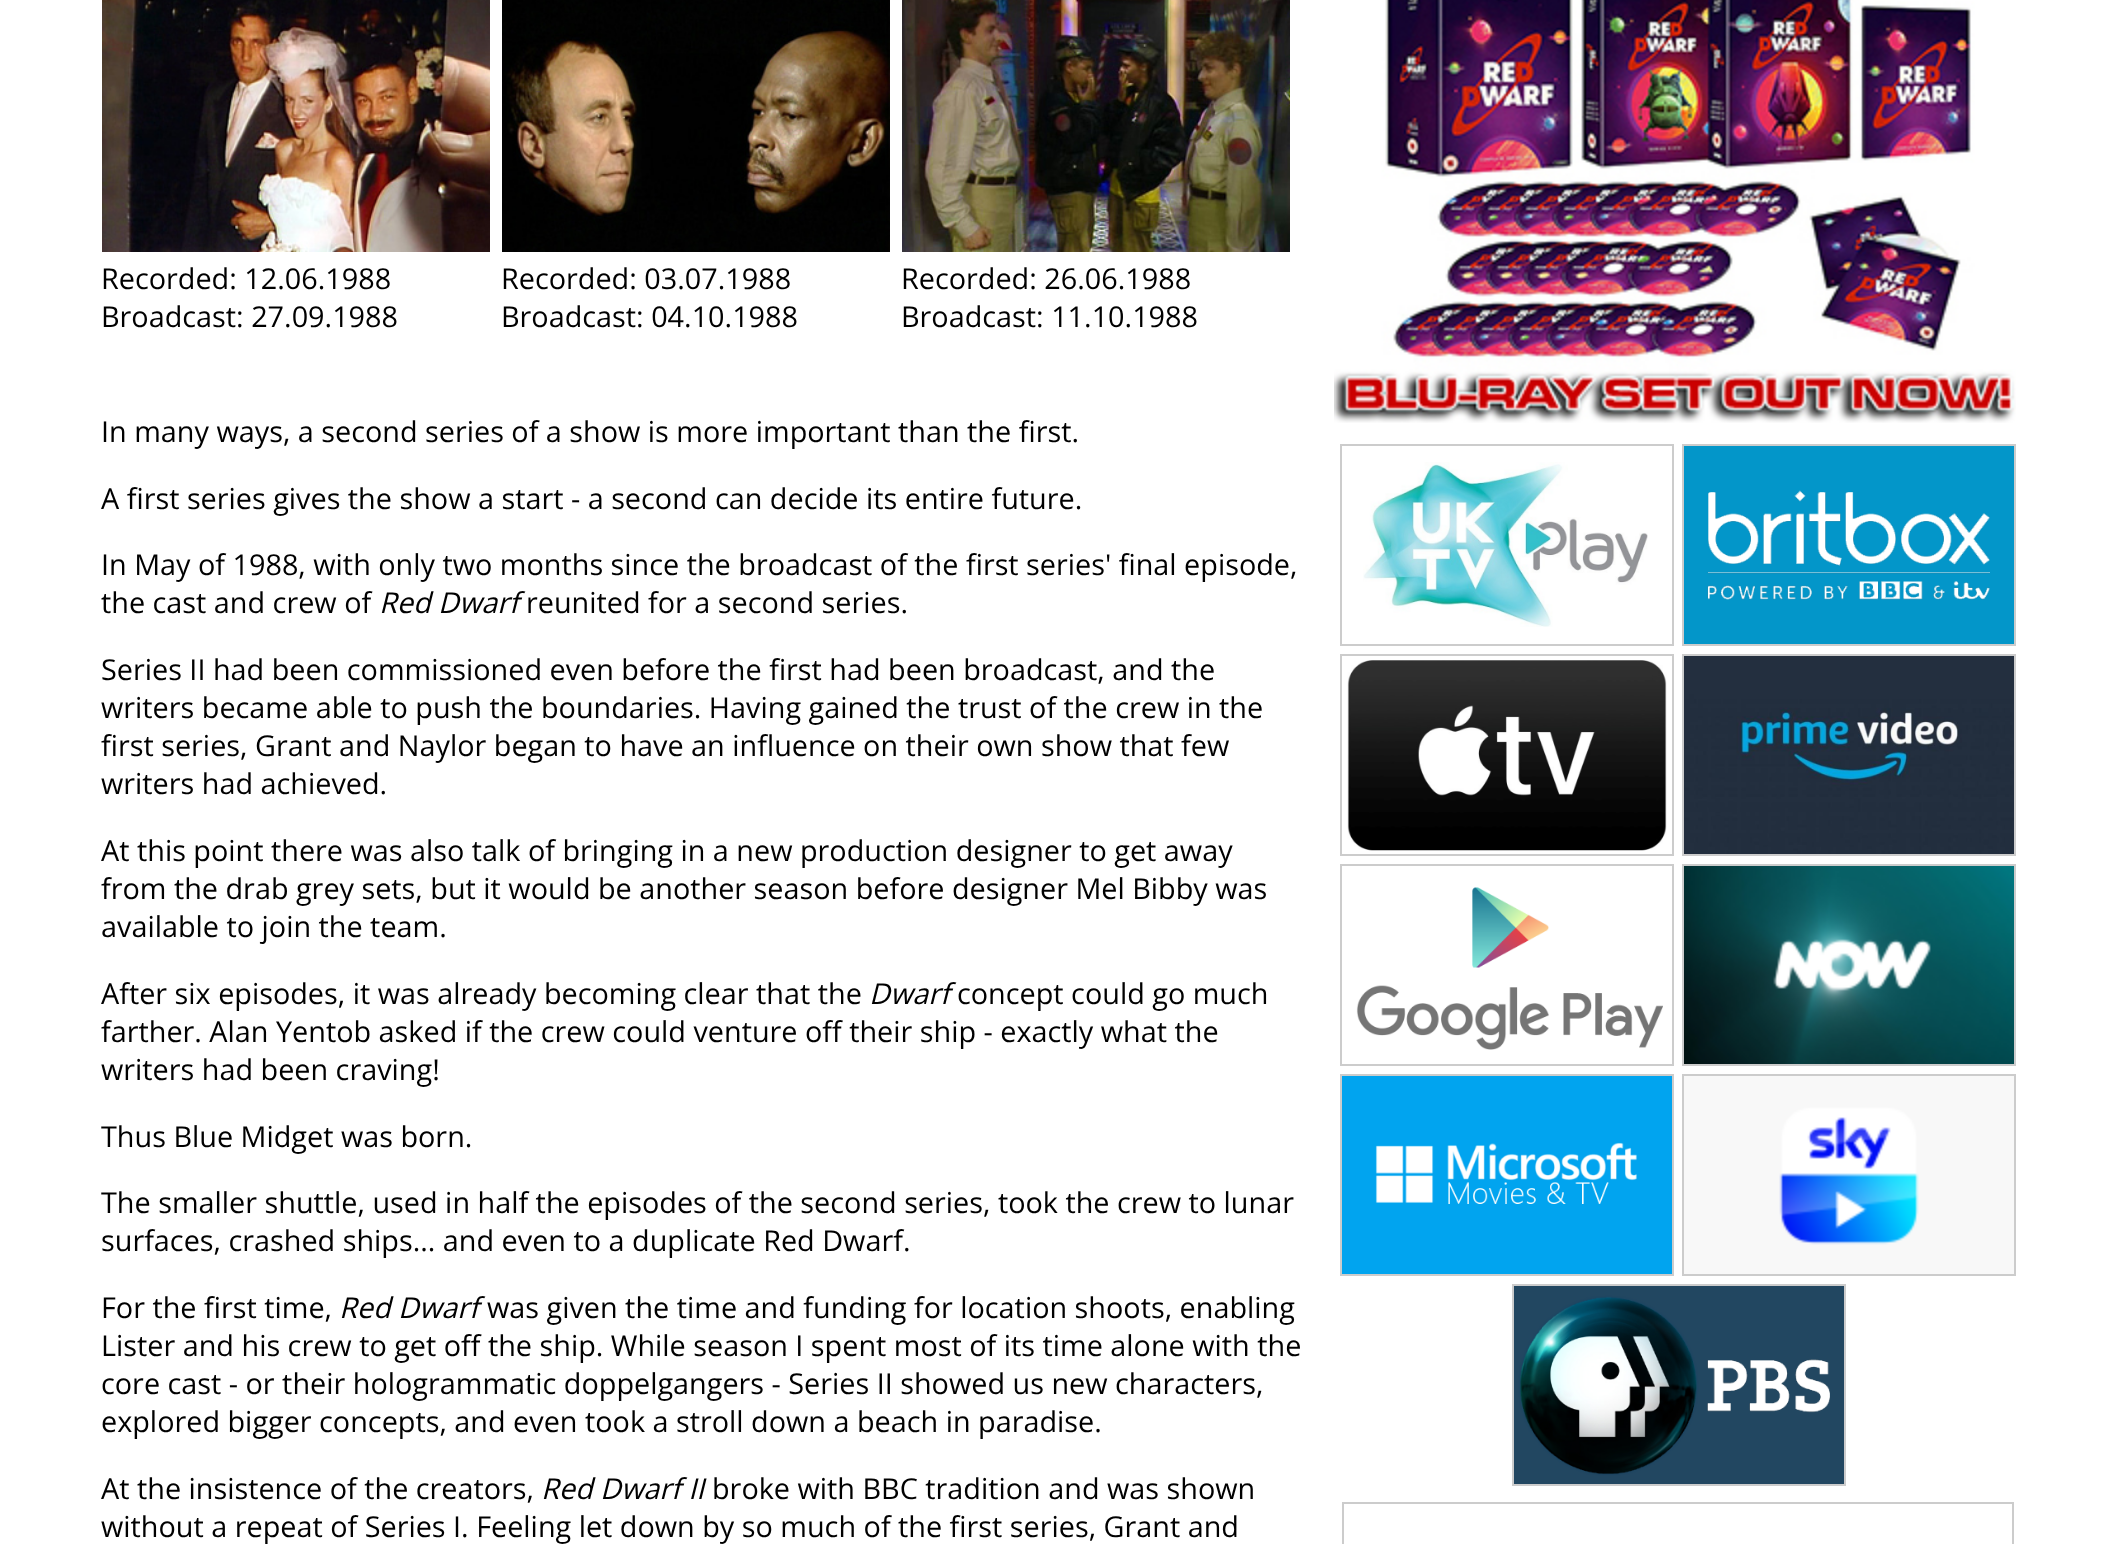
(async () => {
  const canvas = document.querySelector("canvas");
  canvas.width = 2121;
  canvas.height = 1544;
  const ctx = canvas.getContext("2d");
  ctx.miterLimit = 4;
  ctx.fontKerning = "normal";
  async function loadImage(src) {
    const img = new Image();
    img.src = src;
    await img.decode();
    return img;
  }

  ctx.fillStyle = "#ffffff";
  ctx.fillRect(0, 0, 2121, 1544);
  ctx.drawImage(await loadImage("img/1.png"), 102, 0, 388, 252);
  ctx.drawImage(await loadImage("img/2.png"), 502, 0, 388, 252);
  ctx.drawImage(await loadImage("img/3.png"), 902, 0, 388, 252);
  ctx.drawImage(await loadImage("img/4.png"), 1334, 0, 682, 423);
  ctx.strokeStyle = "#cccccc";
  ctx.lineWidth = 2;
  ctx.strokeRect(1341, 445, 332, 200);
  ctx.strokeRect(1683, 445, 332, 200);
  ctx.drawImage(await loadImage("img/5.png"), 1363, 462, 285, 165);
  ctx.drawImage(await loadImage("img/6.png"), 1684, 446, 330, 198);
  ctx.strokeRect(1341, 655, 332, 200);
  ctx.strokeRect(1683, 655, 332, 200);
  ctx.drawImage(await loadImage("img/7.png"), 1347, 660, 320, 191);
  ctx.drawImage(await loadImage("img/8.png"), 1684, 656, 330, 198);
  ctx.strokeRect(1341, 865, 332, 200);
  ctx.strokeRect(1683, 865, 332, 200);
  ctx.drawImage(await loadImage("img/9.png"), 1356, 887, 307, 163);
  ctx.drawImage(await loadImage("img/10.png"), 1684, 866, 330, 198);
  ctx.strokeRect(1341, 1075, 332, 200);
  ctx.strokeRect(1683, 1075, 332, 200);
  ctx.drawImage(await loadImage("img/11.png"), 1342, 1076, 330, 198);
  ctx.drawImage(await loadImage("img/12.png"), 1684, 1076, 330, 198);
  ctx.strokeRect(1513, 1285, 332, 200);
  ctx.drawImage(await loadImage("img/13.png"), 1514, 1286, 330, 198);
  ctx.strokeRect(1343, 1503, 670, 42);
  ctx.font = "28.8px Open Sans";
  ctx.fillStyle = "#000000";
  for (const [text, x, y] of [
    ["Recorded: 12.06.1988", 101, 289],
    ["Broadcast: 27.09.1988", 101, 327],
    ["Recorded: 03.07.1988", 501, 289],
    ["Broadcast: 04.10.1988", 501, 327],
    ["Recorded: 26.06.1988", 901, 289],
    ["Broadcast: 11.10.1988", 901, 327],
    ["In many ways, a second series of a show is more important than the first.", 101, 442],
    ["A first series gives the show a start - a second can decide its entire future.", 101, 509],
    ["In May of 1988, with only two months since the broadcast of the first series' final episode,", 101, 575],
    ["the cast and crew of", 101, 613],
  ]) {
    ctx.fillText(text, x, y);
  }
  ctx.font = "italic 28.8px Open Sans";
  ctx.fillText("Red Dwarf", 379, 613);
  ctx.font = "28.8px Open Sans";
  for (const [text, x, y] of [
    ["reunited for a second series.", 526, 613],
    ["Series II had been commissioned even before the first had been broadcast, and the", 101, 680],
    ["writers became able to push the boundaries. Having gained the trust of the crew in the", 101, 718],
    ["first series, Grant and Naylor began to have an influence on their own show that few", 101, 756],
    ["writers had achieved.", 101, 794],
    ["At this point there was also talk of bringing in a new production designer to get away", 101, 861],
    ["from the drab grey sets, but it would be another season before designer Mel Bibby was", 101, 899],
    ["available to join the team.", 101, 937],
    ["After six episodes, it was already becoming clear that the", 101, 1004],
  ]) {
    ctx.fillText(text, x, y);
  }
  ctx.font = "italic 28.8px Open Sans";
  ctx.fillText("Dwarf", 869, 1004);
  ctx.font = "28.8px Open Sans";
  for (const [text, x, y] of [
    ["concept could go much", 957, 1004],
    ["farther. Alan Yentob asked if the crew could venture off their ship - exactly what the", 101, 1042],
    ["writers had been craving!", 101, 1080],
    ["Thus Blue Midget was born.", 101, 1147],
    ["The smaller shuttle, used in half the episodes of the second series, took the crew to lunar", 101, 1213],
    ["surfaces, crashed ships... and even to a duplicate Red Dwarf.", 101, 1251],
    ["For the first time,", 101, 1318],
  ]) {
    ctx.fillText(text, x, y);
  }
  ctx.font = "italic 28.8px Open Sans";
  ctx.fillText("Red Dwarf", 339, 1318);
  ctx.font = "28.8px Open Sans";
  for (const [text, x, y] of [
    ["was given the time and funding for location shoots, enabling", 487, 1318],
    ["Lister and his crew to get off the ship. While season I spent most of its time alone with the", 101, 1356],
    ["core cast - or their hologrammatic doppelgangers - Series II showed us new characters,", 101, 1394],
    ["explored bigger concepts, and even took a stroll down a beach in paradise.", 101, 1432],
    ["At the insistence of the creators,", 101, 1499],
  ]) {
    ctx.fillText(text, x, y);
  }
  ctx.font = "italic 28.8px Open Sans";
  ctx.fillText("Red Dwarf II", 541, 1499);
  ctx.font = "28.8px Open Sans";
  ctx.fillText("broke with BBC tradition and was shown", 712, 1499);
  ctx.fillText("without a repeat of Series I. Feeling let down by so much of the first series, Grant and", 101, 1537);
})();
